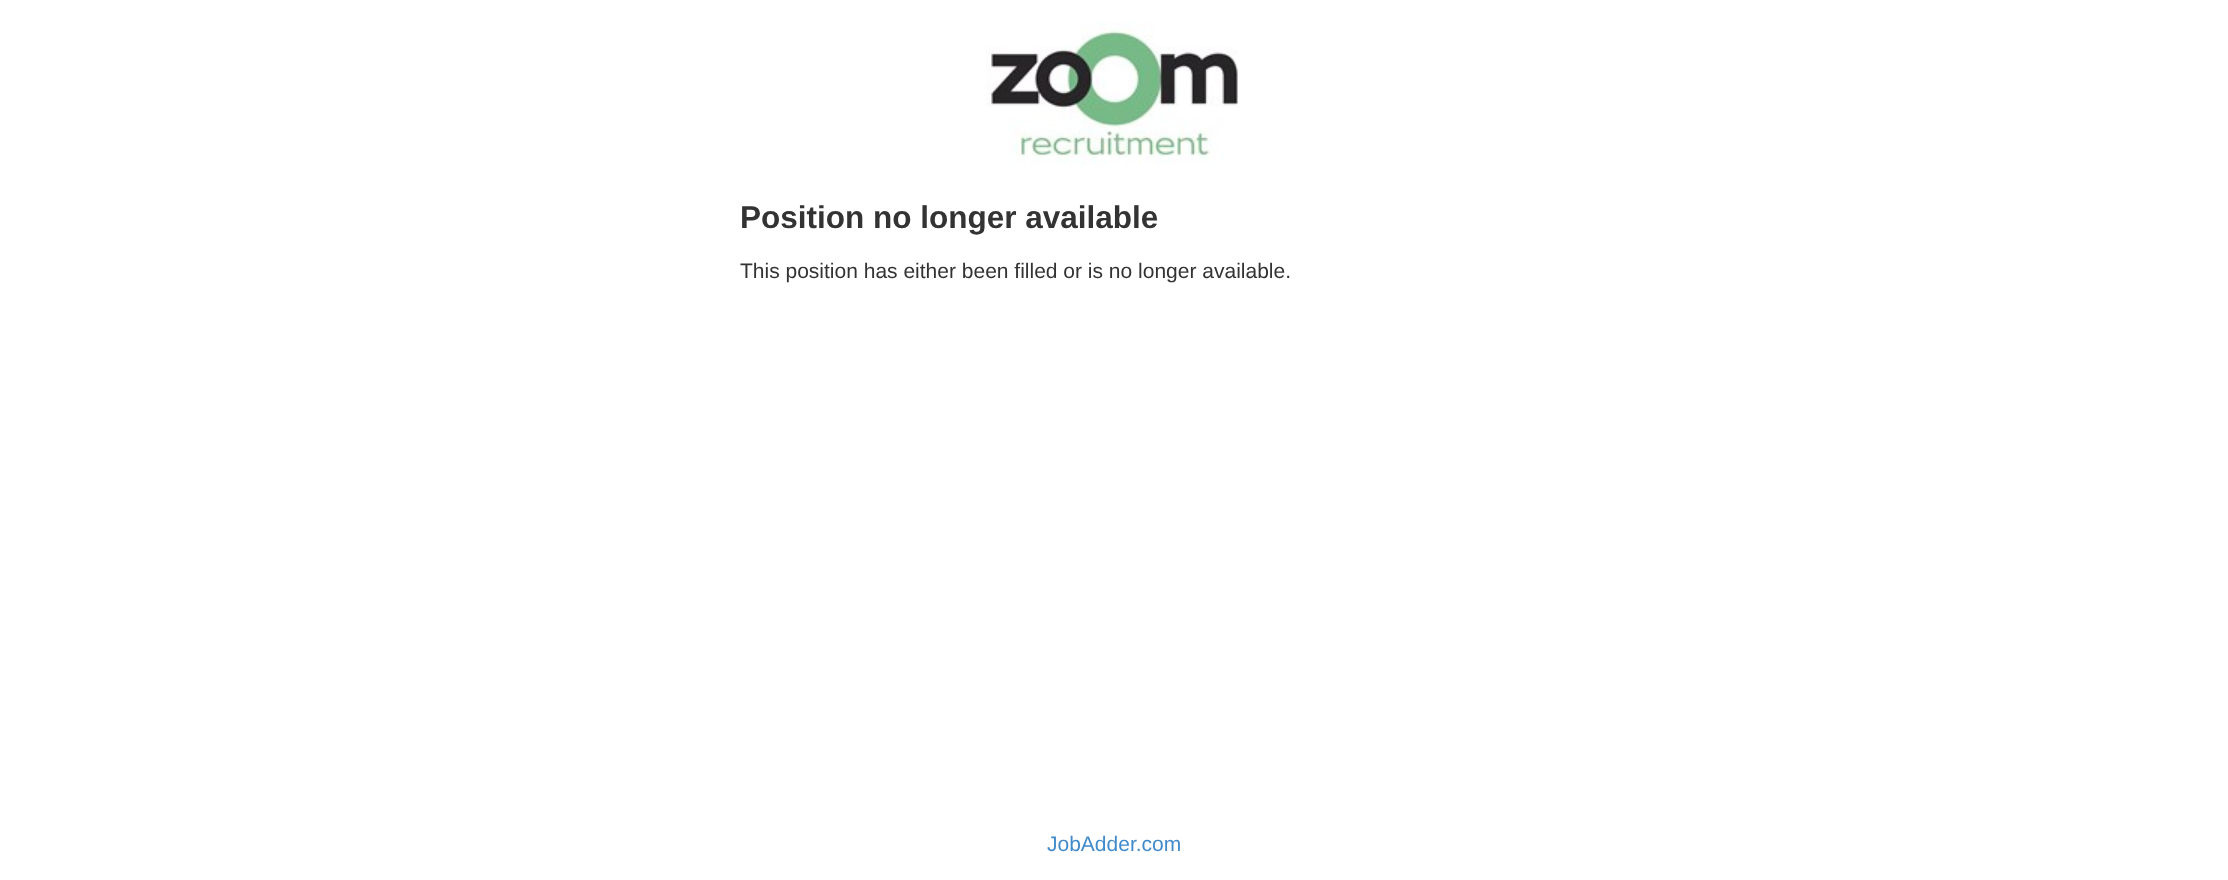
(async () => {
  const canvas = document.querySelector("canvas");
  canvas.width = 2228;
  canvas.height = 880;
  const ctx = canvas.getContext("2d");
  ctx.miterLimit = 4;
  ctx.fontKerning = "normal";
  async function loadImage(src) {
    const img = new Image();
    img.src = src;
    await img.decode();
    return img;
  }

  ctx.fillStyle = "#ffffff";
  ctx.fillRect(0, 0, 2228, 880);
  ctx.drawImage(await loadImage("img/1.png"), 986, 22, 252, 143);
  ctx.font = "bold 31.5px Liberation Sans";
  ctx.fillStyle = "#333333";
  ctx.fillText("Position no longer available", 740, 228);
  ctx.font = "21px Liberation Sans";
  ctx.fillText("This position has either been filled or is no longer available.", 740, 278);
  ctx.fillStyle = "#428bca";
  ctx.fillText("JobAdder.com", 1047, 851);
})();
